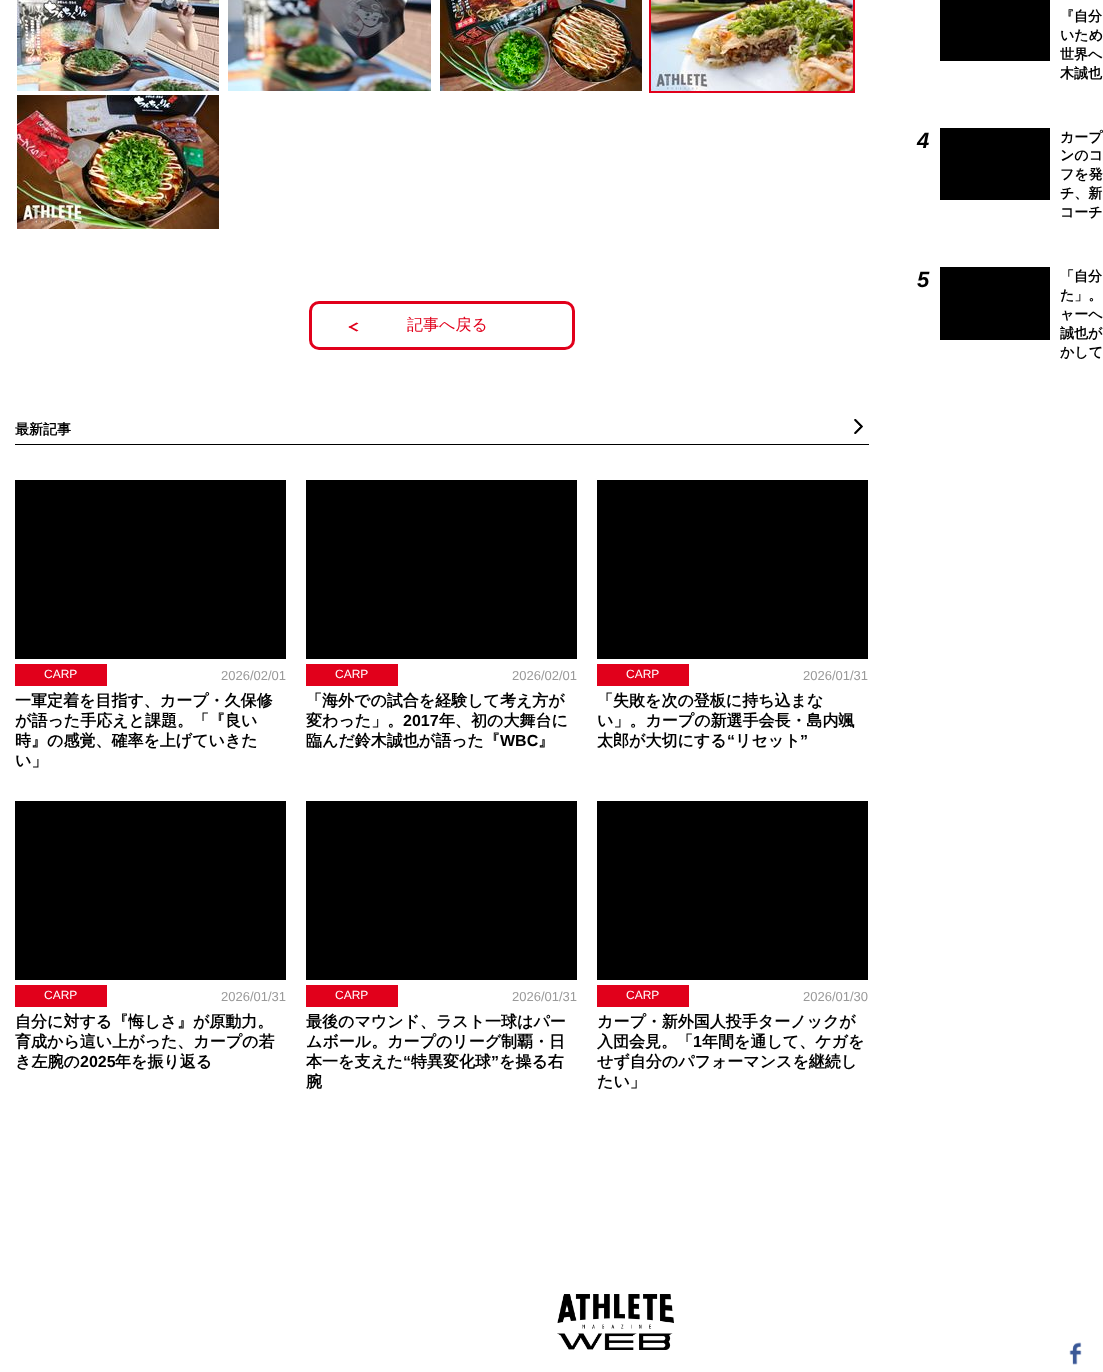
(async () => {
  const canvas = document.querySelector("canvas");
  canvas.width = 1103;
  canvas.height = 1372;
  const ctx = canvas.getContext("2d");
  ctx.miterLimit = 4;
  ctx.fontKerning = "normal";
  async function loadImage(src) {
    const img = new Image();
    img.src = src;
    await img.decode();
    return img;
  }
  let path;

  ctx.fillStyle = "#ffffff";
  ctx.fillRect(0, 0, 1103, 1372);
  for (const [x, y, w, h, color] of [
    [940, 0, 110, 61, "#000000"],
    [940, 128, 110, 72, "#000000"],
    [940, 267, 110, 73, "#000000"],
  ]) {
    ctx.fillStyle = color;
    ctx.fillRect(x, y, w, h);
  }
  ctx.drawImage(await loadImage("img/1.png"), 17, 0, 202, 91);
  ctx.drawImage(await loadImage("img/2.png"), 228, 0, 203, 91);
  ctx.drawImage(await loadImage("img/3.png"), 440, 0, 202, 91);
  ctx.strokeStyle = "#e1001b";
  ctx.lineWidth = 2;
  ctx.strokeRect(650, -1, 204, 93);
  ctx.drawImage(await loadImage("img/4.png"), 651, 0, 202, 91);
  ctx.drawImage(await loadImage("img/5.png"), 17, 95, 202, 134);
  ctx.beginPath();
  ctx.roundRect(310.5, 302.5, 263, 46, 8.5);
  ctx.lineWidth = 3;
  ctx.stroke();
  ctx.fillStyle = "#e1001b";
  path = new Path2D("M350 326L358.5 330.5L356.5 331.5L348.5 327Z");
  ctx.fill(path);
  path = new Path2D("M356.5 322.5L358.5 323.5L350 328L348.5 327Z");
  ctx.fill(path);
  ctx.fillStyle = "#000000";
  ctx.fillRect(15, 444, 854, 1);
  ctx.drawImage(await loadImage("img/6.png"), 854, 419, 9, 15);
  for (const [x, y, w, h, color] of [
    [15, 480, 271, 179, "#000000"],
    [15, 664, 92, 22, "#e1001b"],
    [306, 480, 271, 179, "#000000"],
    [306, 664, 92, 22, "#e1001b"],
    [597, 480, 271, 179, "#000000"],
    [597, 664, 92, 22, "#e1001b"],
    [15, 801, 271, 179, "#000000"],
    [15, 985, 92, 22, "#e1001b"],
    [306, 801, 271, 179, "#000000"],
    [306, 985, 92, 22, "#e1001b"],
    [597, 801, 271, 179, "#000000"],
    [597, 985, 92, 22, "#e1001b"],
  ]) {
    ctx.fillStyle = color;
    ctx.fillRect(x, y, w, h);
  }
  ctx.drawImage(await loadImage("img/7.png"), 557, 1294, 117, 56);
  ctx.drawImage(await loadImage("img/8.png"), 1069, 1342, 13, 23);
  ctx.font = "bold 14px WenQuanYi Zen Hei";
  ctx.fillStyle = "#000000";
  for (const [text, x, y] of [
    ["『自分", 1060, 21],
    ["いため", 1060, 40],
    ["世界へ", 1060, 59],
    ["木誠也", 1060, 78],
  ]) {
    ctx.fillText(text, x, y);
  }
  ctx.font = "italic bold 22px Liberation Sans";
  ctx.fillText("4", 917, 148);
  ctx.font = "bold 14px WenQuanYi Zen Hei";
  for (const [text, x, y] of [
    ["カープ", 1060, 142],
    ["ンのコ", 1060, 160],
    ["フを発", 1060, 179],
    ["チ、新", 1060, 198],
    ["コーチ", 1060, 217],
  ]) {
    ctx.fillText(text, x, y);
  }
  ctx.font = "italic bold 22px Liberation Sans";
  ctx.fillText("5", 917, 287);
  ctx.font = "bold 14px WenQuanYi Zen Hei";
  for (const [text, x, y] of [
    ["「自分", 1060, 281],
    ["た」。", 1060, 300],
    ["ャーへ", 1060, 319],
    ["誠也が", 1060, 338],
    ["かして", 1060, 357],
  ]) {
    ctx.fillText(text, x, y);
  }
  ctx.font = "500 16px WenQuanYi Zen Hei";
  ctx.fillStyle = "#e1001b";
  ctx.fillText("記事へ戻る", 407, 330);
  ctx.font = "bold 14px WenQuanYi Zen Hei";
  ctx.fillStyle = "#000000";
  ctx.fillText("最新記事", 15, 434);
  ctx.font = "12px Liberation Sans";
  ctx.fillStyle = "#ffffff";
  ctx.fillText("CARP", 44, 678);
  ctx.font = "13px Liberation Sans";
  ctx.fillStyle = "#999999";
  ctx.fillText("2026/02/01", 221, 680);
  ctx.font = "bold 16px WenQuanYi Zen Hei";
  ctx.fillStyle = "#000000";
  for (const [text, x, y] of [
    ["一軍定着を目指す、カープ・久保修", 15, 706],
    ["が語った手応えと課題。「『良い", 15, 726],
    ["時』の感覚、確率を上げていきた", 15, 746],
    ["い」", 15, 766],
  ]) {
    ctx.fillText(text, x, y);
  }
  ctx.font = "12px Liberation Sans";
  ctx.fillStyle = "#ffffff";
  ctx.fillText("CARP", 335, 678);
  ctx.font = "13px Liberation Sans";
  ctx.fillStyle = "#999999";
  ctx.fillText("2026/02/01", 512, 680);
  ctx.font = "bold 16px WenQuanYi Zen Hei";
  ctx.fillStyle = "#000000";
  ctx.fillText("「海外での試合を経験して考え方が", 306, 706);
  ctx.fillText("変わった」。", 306, 726);
  ctx.font = "bold 16px Liberation Sans";
  ctx.fillText("2017", 403, 726);
  ctx.font = "bold 16px WenQuanYi Zen Hei";
  ctx.fillText("年、初の大舞台に", 439, 726);
  ctx.fillText("臨んだ鈴木誠也が語った『", 306, 746);
  ctx.font = "bold 16px Liberation Sans";
  ctx.fillText("WBC", 500, 746);
  ctx.font = "bold 16px WenQuanYi Zen Hei";
  ctx.fillText("』", 538, 746);
  ctx.font = "12px Liberation Sans";
  ctx.fillStyle = "#ffffff";
  ctx.fillText("CARP", 626, 678);
  ctx.font = "13px Liberation Sans";
  ctx.fillStyle = "#999999";
  ctx.fillText("2026/01/31", 803, 680);
  ctx.font = "bold 16px WenQuanYi Zen Hei";
  ctx.fillStyle = "#000000";
  for (const [text, x, y] of [
    ["「失敗を次の登板に持ち込まな", 597, 706],
    ["い」。カープの新選手会長・島内颯", 597, 726],
    ["太郎が大切にする", 597, 746],
  ]) {
    ctx.fillText(text, x, y);
  }
  ctx.font = "bold 16px Liberation Sans";
  ctx.fillText("“", 727, 746);
  ctx.font = "bold 16px WenQuanYi Zen Hei";
  ctx.fillText("リセット", 735, 746);
  ctx.font = "bold 16px Liberation Sans";
  ctx.fillText("”", 800, 746);
  ctx.font = "12px Liberation Sans";
  ctx.fillStyle = "#ffffff";
  ctx.fillText("CARP", 44, 999);
  ctx.font = "13px Liberation Sans";
  ctx.fillStyle = "#999999";
  ctx.fillText("2026/01/31", 221, 1001);
  ctx.font = "bold 16px WenQuanYi Zen Hei";
  ctx.fillStyle = "#000000";
  for (const [text, x, y] of [
    ["自分に対する『悔しさ』が原動力。", 15, 1027],
    ["育成から這い上がった、カープの若", 15, 1047],
    ["き左腕の", 15, 1067],
  ]) {
    ctx.fillText(text, x, y);
  }
  ctx.font = "bold 16px Liberation Sans";
  ctx.fillText("2025", 80, 1067);
  ctx.font = "bold 16px WenQuanYi Zen Hei";
  ctx.fillText("年を振り返る", 115, 1067);
  ctx.font = "12px Liberation Sans";
  ctx.fillStyle = "#ffffff";
  ctx.fillText("CARP", 335, 999);
  ctx.font = "13px Liberation Sans";
  ctx.fillStyle = "#999999";
  ctx.fillText("2026/01/31", 512, 1001);
  ctx.font = "bold 16px WenQuanYi Zen Hei";
  ctx.fillStyle = "#000000";
  for (const [text, x, y] of [
    ["最後のマウンド、ラスト一球はパー", 306, 1027],
    ["ムボール。カープのリーグ制覇・日", 306, 1047],
    ["本一を支えた", 306, 1067],
  ]) {
    ctx.fillText(text, x, y);
  }
  ctx.font = "bold 16px Liberation Sans";
  ctx.fillText("“", 403, 1067);
  ctx.font = "bold 16px WenQuanYi Zen Hei";
  ctx.fillText("特異変化球", 411, 1067);
  ctx.font = "bold 16px Liberation Sans";
  ctx.fillText("”", 491, 1067);
  ctx.font = "bold 16px WenQuanYi Zen Hei";
  ctx.fillText("を操る右", 499, 1067);
  ctx.fillText("腕", 306, 1087);
  ctx.font = "12px Liberation Sans";
  ctx.fillStyle = "#ffffff";
  ctx.fillText("CARP", 626, 999);
  ctx.font = "13px Liberation Sans";
  ctx.fillStyle = "#999999";
  ctx.fillText("2026/01/30", 803, 1001);
  ctx.font = "bold 16px WenQuanYi Zen Hei";
  ctx.fillStyle = "#000000";
  ctx.fillText("カープ・新外国人投手ターノックが", 597, 1027);
  ctx.fillText("入団会見。「", 597, 1047);
  ctx.font = "bold 16px Liberation Sans";
  ctx.fillText("1", 693, 1047);
  ctx.font = "bold 16px WenQuanYi Zen Hei";
  for (const [text, x, y] of [
    ["年間を通して、ケガを", 702, 1047],
    ["せず自分のパフォーマンスを継続し", 597, 1067],
    ["たい」", 597, 1087],
  ]) {
    ctx.fillText(text, x, y);
  }
})();
